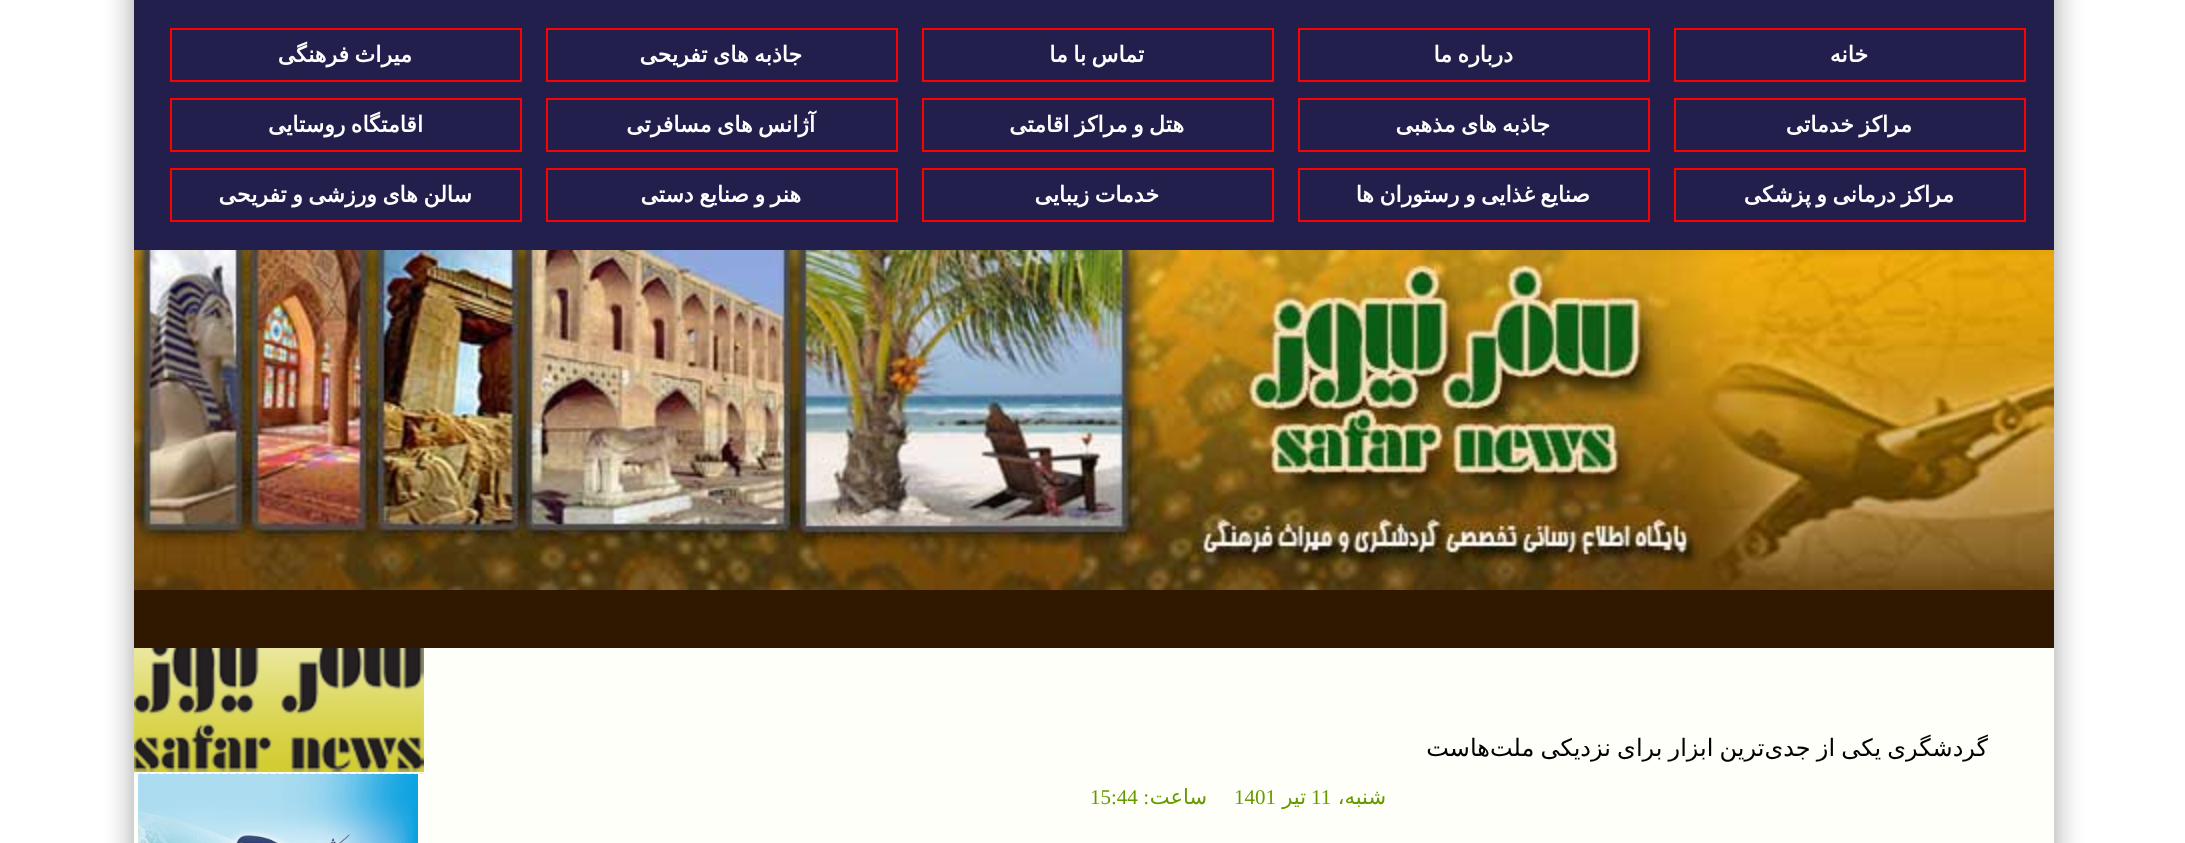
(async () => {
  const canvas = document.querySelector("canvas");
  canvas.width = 2185;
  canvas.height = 843;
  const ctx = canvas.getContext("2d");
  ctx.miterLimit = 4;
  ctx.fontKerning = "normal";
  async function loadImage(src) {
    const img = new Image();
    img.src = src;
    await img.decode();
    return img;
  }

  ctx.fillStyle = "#ffffff";
  ctx.fillRect(0, 0, 2185, 843);
  ctx.fillStyle = "#fffff9";
  ctx.fillRect(134, 648, 1920, 195);
  ctx.drawImage(await loadImage("img/1.png"), 2054, 0, 40, 648);
  ctx.fillStyle = "#221f4c";
  ctx.fillRect(134, 0, 1920, 250);
  ctx.strokeStyle = "#ff0000";
  ctx.lineWidth = 2;
  ctx.strokeRect(1675, 29, 350, 52);
  ctx.strokeRect(1299, 29, 350, 52);
  ctx.strokeRect(923, 29, 350, 52);
  ctx.strokeRect(547, 29, 350, 52);
  ctx.strokeRect(171, 29, 350, 52);
  ctx.strokeRect(1675, 99, 350, 52);
  ctx.strokeRect(1299, 99, 350, 52);
  ctx.strokeRect(923, 99, 350, 52);
  ctx.strokeRect(547, 99, 350, 52);
  ctx.strokeRect(171, 99, 350, 52);
  ctx.strokeRect(1675, 169, 350, 52);
  ctx.strokeRect(1299, 169, 350, 52);
  ctx.strokeRect(923, 169, 350, 52);
  ctx.strokeRect(547, 169, 350, 52);
  ctx.strokeRect(171, 169, 350, 52);
  ctx.drawImage(await loadImage("img/2.png"), 134, 250, 1920, 340);
  ctx.fillStyle = "#2f1700";
  ctx.fillRect(134, 590, 1920, 58);
  ctx.drawImage(await loadImage("img/3.png"), 94, 0, 40, 648);
  ctx.drawImage(await loadImage("img/4.png"), 2054, 648, 40, 195);
  ctx.drawImage(await loadImage("img/5.png"), 134, 648, 290, 124);
  ctx.drawImage(await loadImage("img/6.png"), 134, 773, 289, 1);
  ctx.drawImage(await loadImage("img/7.png"), 138, 774, 280, 69);
  ctx.drawImage(await loadImage("img/8.png"), 94, 648, 40, 195);
  ctx.direction = "rtl";
  ctx.font = "bold 22px DejaVu Sans";
  ctx.fillStyle = "#ffffff";
  ctx.fillText("خانه", 1868, 62);
  ctx.wordSpacing = "-1.5px";
  for (const [text, x, y] of [
    ["درباره ما", 1513, 62],
    ["تماس با ما", 1144, 62],
    ["جاذبه های تفریحی", 802, 62],
    ["میراث فرهنگی", 412, 62],
    ["مراکز خدماتی", 1912, 132],
    ["جاذبه های مذهبی", 1550, 132],
    ["هتل و مراکز اقامتی", 1184, 132],
    ["آژانس های مسافرتی", 815, 132],
    ["اقامتگاه روستایی", 423, 132],
    ["مراکز درمانی و پزشکی", 1954, 202],
    ["صنایع غذایی و رستوران ها", 1590, 202],
    ["خدمات زیبایی", 1159, 202],
    ["هنر و صنایع دستی", 801, 202],
    ["سالن های ورزشی و تفریحی", 472, 202],
  ]) {
    ctx.fillText(text, x, y);
  }
  ctx.font = "24px DejaVu Sans";
  ctx.fillStyle = "#000000";
  ctx.fillText("گردشگری یکی از جدی‌ترین ابزار برای نزدیکی ملت‌هاست", 1988, 756);
  ctx.wordSpacing = "0px";
  ctx.font = "21px DejaVu Sans";
  ctx.fillStyle = "#669900";
  ctx.fillText("شنبه،", 1386, 804);
  ctx.direction = "ltr";
  ctx.font = "21px Liberation Serif";
  ctx.fillText("11", 1311, 804);
  ctx.direction = "rtl";
  ctx.font = "21px DejaVu Sans";
  ctx.fillText("تير", 1306, 804);
  ctx.direction = "ltr";
  ctx.font = "21px Liberation Serif";
  ctx.fillText("1401", 1234, 804);
  ctx.direction = "rtl";
  ctx.font = "21px DejaVu Sans";
  ctx.fillText("ساعت", 1207, 804);
  ctx.font = "21px Liberation Serif";
  ctx.fillText(":", 1149, 804);
  ctx.direction = "ltr";
  ctx.fillText("15:44", 1090, 804);
})();
